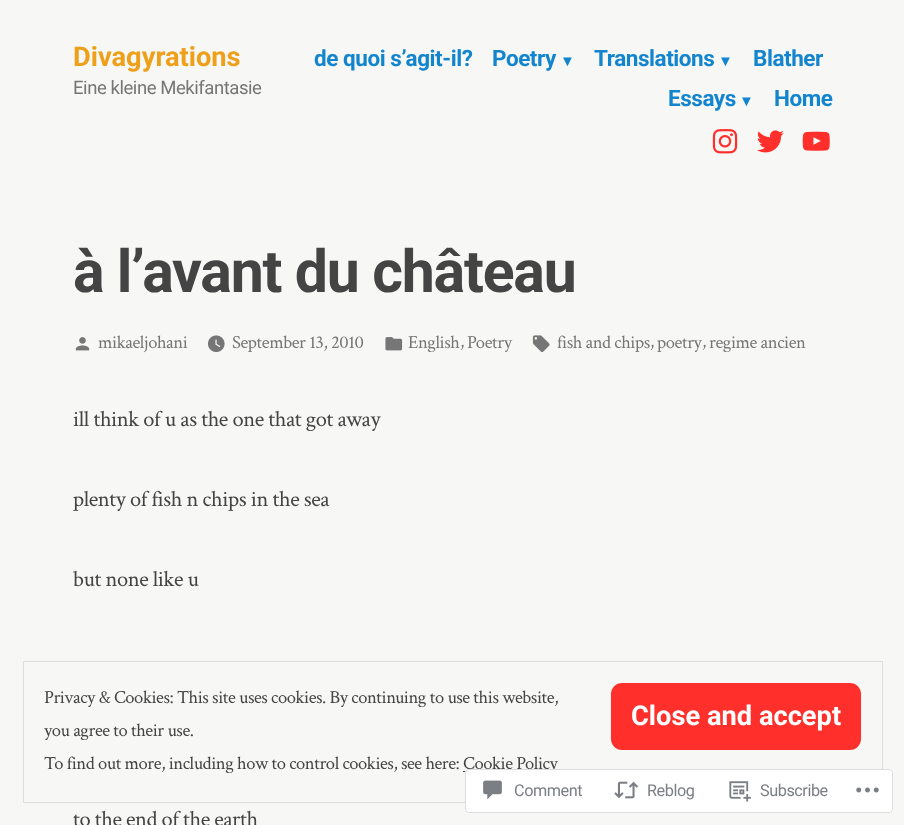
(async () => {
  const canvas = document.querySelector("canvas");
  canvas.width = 904;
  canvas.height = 825;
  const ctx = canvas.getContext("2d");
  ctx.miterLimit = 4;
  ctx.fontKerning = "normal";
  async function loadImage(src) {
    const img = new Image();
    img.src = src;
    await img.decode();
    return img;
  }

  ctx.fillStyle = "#f7f7f6";
  ctx.fillRect(0, 0, 904, 825);
  ctx.drawImage(await loadImage("img/1.png"), 712, 129, 26, 25);
  ctx.drawImage(await loadImage("img/2.png"), 757, 130, 27, 23);
  ctx.drawImage(await loadImage("img/3.png"), 802, 131, 28, 20);
  ctx.drawImage(await loadImage("img/4.png"), 75, 337, 15, 14);
  ctx.drawImage(await loadImage("img/5.png"), 207, 335, 18, 18);
  ctx.drawImage(await loadImage("img/6.png"), 385, 337, 18, 14);
  ctx.drawImage(await loadImage("img/7.png"), 532, 335, 18, 17);
  ctx.strokeStyle = "#dddddd";
  ctx.strokeRect(23.5, 661.5, 859, 141);
  ctx.fillStyle = "#ff302c";
  ctx.beginPath();
  ctx.roundRect(611, 683, 250, 67, 11);
  ctx.fill();
  ctx.fillStyle = "#444444";
  ctx.fillRect(463, 771, 95, 1);
  ctx.font = "bold 27.25px Roboto";
  ctx.fillStyle = "#eea01a";
  ctx.fillText("Divagyrations", 73, 66);
  ctx.letterSpacing = "-0.45px";
  ctx.font = "18.55px Roboto";
  ctx.fillStyle = "#767676";
  ctx.fillText("Eine kleine Mekifantasie", 73, 94);
  ctx.font = "bold 22.5px Roboto";
  ctx.fillStyle = "#1285ce";
  ctx.fillText("de quoi s’agit-il?", 314, 66);
  ctx.fillText("Poetry", 492, 66);
  ctx.font = "bold 15px Liberation Sans";
  ctx.fillText("▼", 560, 66);
  ctx.font = "bold 22.5px Roboto";
  ctx.fillText("Translations", 594, 66);
  ctx.font = "bold 15px Liberation Sans";
  ctx.fillText("▼", 718, 66);
  ctx.font = "bold 22.5px Roboto";
  ctx.fillText("Blather", 753, 66);
  ctx.fillText("Essays", 668, 106);
  ctx.font = "bold 15px Liberation Sans";
  ctx.fillText("▼", 739, 106);
  ctx.font = "bold 22.5px Roboto";
  ctx.fillText("Home", 774, 106);
  ctx.letterSpacing = "-1.2px";
  ctx.font = "bold 59px Roboto";
  ctx.fillStyle = "#444444";
  ctx.fillText("à l’avant du château", 73, 292);
  ctx.letterSpacing = "-0.45px";
  ctx.font = "18.55px Crimson Text";
  ctx.fillStyle = "#767676";
  for (const [text, x, y] of [
    ["mikaeljohani", 98, 348],
    ["September 13, 2010", 232, 348],
    ["English", 408, 348],
    [",", 460, 347],
    ["Poetry", 467, 348],
    ["fish and chips", 557, 348],
    [",", 650, 347],
    ["poetry", 657, 348],
    [",", 702, 347],
    ["regime ancien", 709, 348],
  ]) {
    ctx.fillText(text, x, y);
  }
  ctx.font = "22.5px Crimson Text";
  ctx.fillStyle = "#444444";
  for (const [text, x, y] of [
    ["ill think of u as the one that got away", 73, 426],
    ["plenty of fish n chips in the sea", 73, 506],
    ["but none like u", 73, 586],
    ["to the end of the earth", 73, 826],
  ]) {
    ctx.fillText(text, x, y);
  }
  ctx.font = "18.55px Crimson Text";
  ctx.fillText("Privacy & Cookies: This site uses cookies. By continuing to use this website,", 44, 703);
  ctx.fillText("you agree to their use.", 44, 736);
  ctx.letterSpacing = "0px";
  ctx.font = "bold 27.25px Roboto";
  ctx.fillStyle = "#ffffff";
  ctx.fillText("Close and accept", 631, 725);
  ctx.letterSpacing = "-0.45px";
  ctx.font = "18.55px Crimson Text";
  ctx.fillStyle = "#444444";
  ctx.fillText("To find out more, including how to control cookies, see here:", 44, 769);
  ctx.fillText("Cookie Policy", 463, 769);
  ctx.fillStyle = "rgba(255, 255, 255, 0.98)";
  ctx.beginPath();
  ctx.roundRect(465, 769, 428, 44, 4);
  ctx.fill();
  ctx.beginPath();
  ctx.roundRect(465.5, 769.5, 427, 43, 3.5);
  ctx.strokeStyle = "rgba(220, 220, 222, 0.98)";
  ctx.stroke();
  ctx.drawImage(await loadImage("img/8.png"), 483, 780, 19, 20);
  ctx.font = "16.25px Roboto";
  ctx.fillStyle = "#7b7e84";
  ctx.fillText("Comment", 514, 796);
  ctx.drawImage(await loadImage("img/9.png"), 614, 781, 25, 18);
  ctx.fillText("Reblog", 647, 796);
  ctx.drawImage(await loadImage("img/10.png"), 729, 781, 22, 21);
  ctx.fillText("Subscribe", 760, 796);
  ctx.drawImage(await loadImage("img/11.png"), 856, 787, 23, 6);
})();
